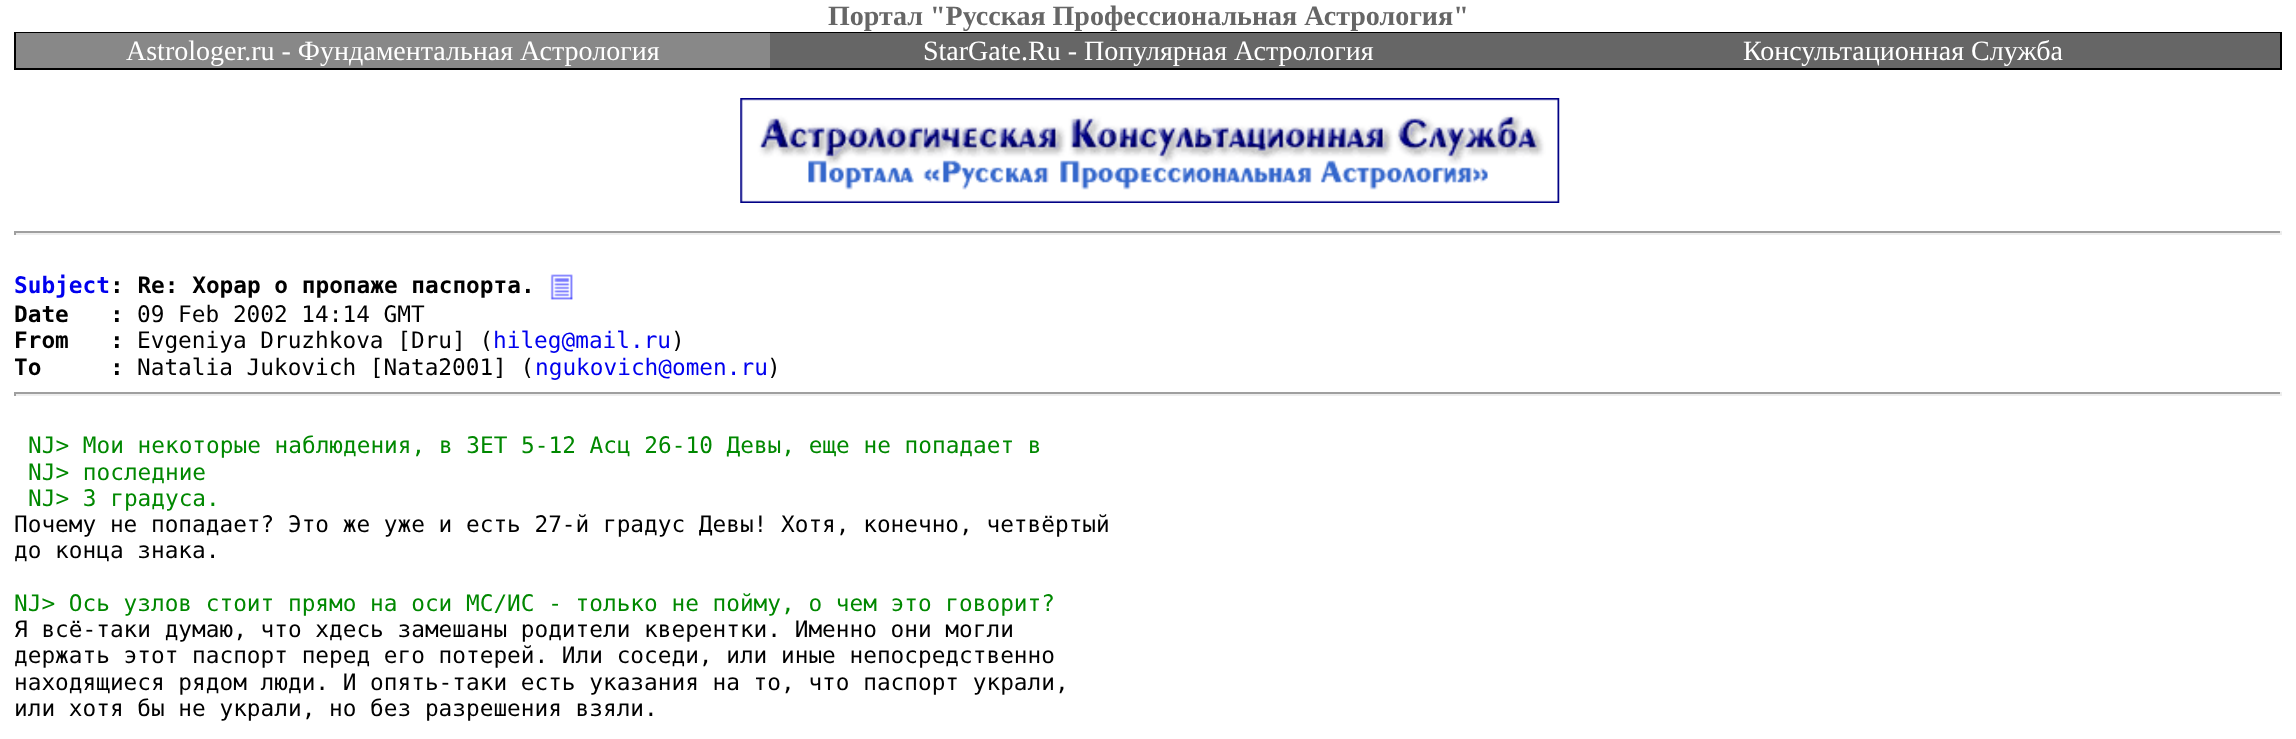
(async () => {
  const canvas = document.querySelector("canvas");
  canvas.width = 2296;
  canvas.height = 739;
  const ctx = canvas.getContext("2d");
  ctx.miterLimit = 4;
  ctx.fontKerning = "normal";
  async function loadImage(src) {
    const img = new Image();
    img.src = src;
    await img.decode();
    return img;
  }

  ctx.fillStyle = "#ffffff";
  ctx.fillRect(0, 0, 2296, 739);
  for (const [x, y, w, h, color] of [
    [14, 32, 2268, 38, "#000000"],
    [770, 33, 1510, 35, "#666666"],
    [16, 33, 754, 35, "#888888"],
  ]) {
    ctx.fillStyle = color;
    ctx.fillRect(x, y, w, h);
  }
  ctx.drawImage(await loadImage("img/1.png"), 740, 98, 820, 105);
  for (const [x, y, w, h, color] of [
    [14, 231, 2268, 2, "#9f9f9f"],
    [2280, 231, 2, 4, "#eeeeee"],
    [14, 233, 2268, 2, "#eeeeee"],
    [14, 231, 2, 4, "#9f9f9f"],
  ]) {
    ctx.fillStyle = color;
    ctx.fillRect(x, y, w, h);
  }
  ctx.drawImage(await loadImage("img/2.png"), 550, 274, 23, 26);
  for (const [x, y, w, h, color] of [
    [14, 392, 2268, 2, "#9f9f9f"],
    [2280, 392, 2, 4, "#eeeeee"],
    [14, 394, 2268, 2, "#eeeeee"],
    [14, 392, 2, 4, "#9f9f9f"],
  ]) {
    ctx.fillStyle = color;
    ctx.fillRect(x, y, w, h);
  }
  ctx.font = "bold 28px Liberation Serif";
  ctx.fillStyle = "#666666";
  ctx.fillText("Портал \"Русская Профессиональная Астрология\"", 828, 25);
  ctx.font = "28px Liberation Serif";
  ctx.fillStyle = "#ffffff";
  for (const [text, x, y] of [
    ["Astrologer.ru - Фундаментальная Астрология", 126, 60],
    ["StarGate.Ru - Популярная Астрология", 923, 60],
    ["Консультационная Служба", 1743, 60],
  ]) {
    ctx.fillText(text, x, y);
  }
  ctx.font = "bold 22.75px DejaVu Sans Mono";
  ctx.fillStyle = "#0000ee";
  ctx.fillText("Subject", 14, 293);
  ctx.fillStyle = "#000000";
  ctx.fillText(": Re: Хорар о пропаже паспорта.", 110, 293);
  ctx.fillText("Date   :", 14, 322);
  ctx.font = "22.75px DejaVu Sans Mono";
  ctx.fillText("09 Feb 2002 14:14 GMT", 137, 322);
  ctx.font = "bold 22.75px DejaVu Sans Mono";
  ctx.fillText("From   :", 14, 348);
  ctx.font = "22.75px DejaVu Sans Mono";
  ctx.fillText("Evgeniya Druzhkova [Dru] (", 137, 348);
  ctx.fillStyle = "#0000ee";
  ctx.fillText("hileg@mail.ru", 493, 348);
  ctx.fillStyle = "#000000";
  ctx.fillText(")", 671, 348);
  ctx.font = "bold 22.75px DejaVu Sans Mono";
  ctx.fillText("To     :", 14, 375);
  ctx.font = "22.75px DejaVu Sans Mono";
  ctx.fillText("Natalia Jukovich [Nata2001] (", 137, 375);
  ctx.fillStyle = "#0000ee";
  ctx.fillText("ngukovich@omen.ru", 535, 375);
  ctx.fillStyle = "#000000";
  ctx.fillText(")", 767, 375);
  ctx.fillStyle = "#008800";
  for (const [text, x, y] of [
    ["NJ> Мои некоторые наблюдения, в ЗЕТ 5-12 Асц 26-10 Девы, еще не попадает в", 28, 453],
    ["NJ> последние", 28, 480],
    ["NJ> 3 градуса.", 28, 506],
  ]) {
    ctx.fillText(text, x, y);
  }
  ctx.fillStyle = "#000000";
  ctx.fillText("Почему не попадает? Это же уже и есть 27-й градус Девы! Хотя, конечно, четвёртый", 14, 532);
  ctx.fillText("до конца знака.", 14, 558);
  ctx.fillStyle = "#008800";
  ctx.fillText("NJ> Ось узлов стоит прямо на оси МС/ИС - только не пойму, о чем это говорит?", 14, 611);
  ctx.fillStyle = "#000000";
  for (const [text, x, y] of [
    ["Я всё-таки думаю, что хдесь замешаны родители кверентки. Именно они могли", 14, 637],
    ["держать этот паспорт перед его потерей. Или соседи, или иные непосредственно", 14, 663],
    ["находящиеся рядом люди. И опять-таки есть указания на то, что паспорт украли,", 14, 690],
    ["или хотя бы не украли, но без разрешения взяли.", 14, 716],
  ]) {
    ctx.fillText(text, x, y);
  }
})();
